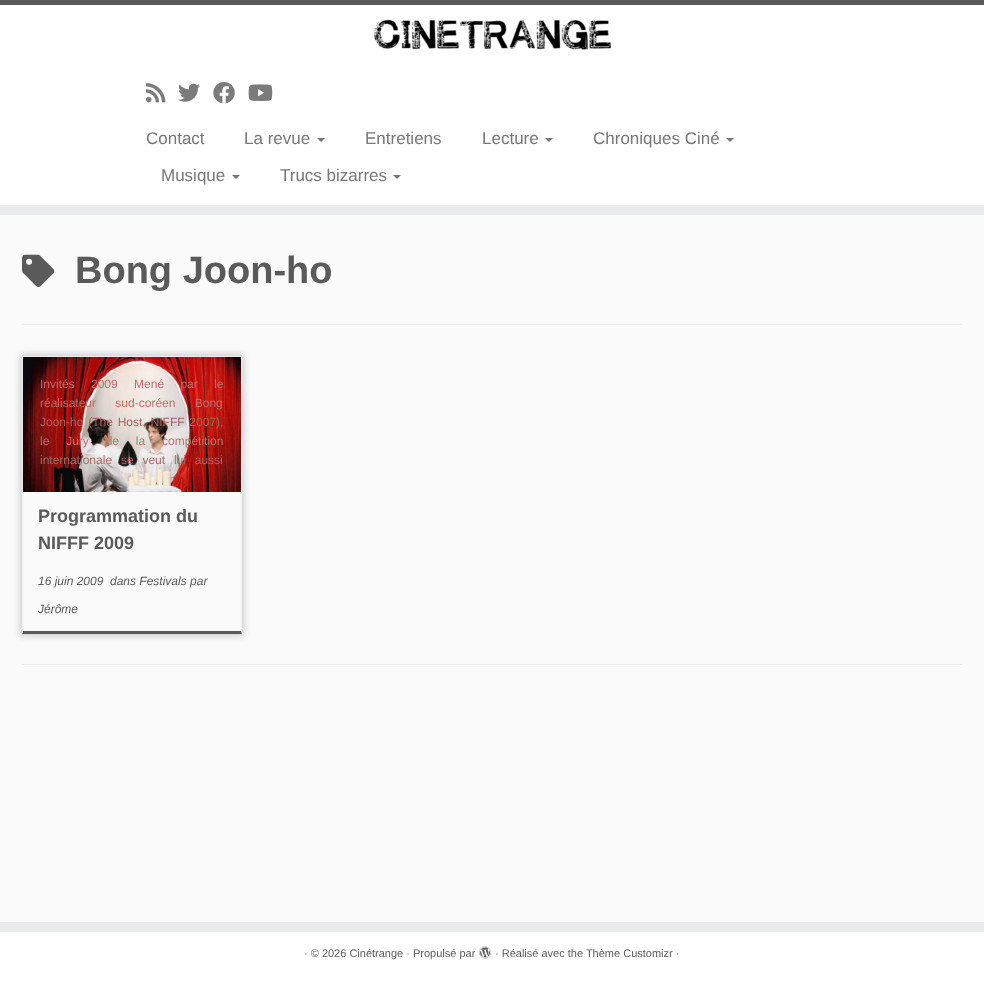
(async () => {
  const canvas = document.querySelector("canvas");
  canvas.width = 984;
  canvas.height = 984;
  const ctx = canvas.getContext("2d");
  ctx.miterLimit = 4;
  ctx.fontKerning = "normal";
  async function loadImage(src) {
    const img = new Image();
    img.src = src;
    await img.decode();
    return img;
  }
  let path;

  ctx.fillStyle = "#fafafa";
  ctx.fillRect(0, 0, 984, 984);
  for (const [x, y, w, h, color] of [
    [0, 5, 984, 200, "#ffffff"],
    [0, 0, 984, 5, "#5a5a5a"],
    [0, 205, 984, 10, "#e9eaee"],
  ]) {
    ctx.fillStyle = color;
    ctx.fillRect(x, y, w, h);
  }
  ctx.drawImage(await loadImage("img/1.png"), 374, 19, 238, 31);
  ctx.drawImage(await loadImage("img/2.png"), 146, 83, 20, 20);
  ctx.drawImage(await loadImage("img/3.png"), 178, 83, 22, 19);
  ctx.drawImage(await loadImage("img/4.png"), 213, 82, 22, 22);
  ctx.drawImage(await loadImage("img/5.png"), 248, 84, 25, 17);
  ctx.fillStyle = "#777777";
  path = new Path2D("M317 138H325L321 142Z");
  ctx.fill(path);
  path = new Path2D("M545 138H553L549 142Z");
  ctx.fill(path);
  path = new Path2D("M726 138H734L730 142Z");
  ctx.fill(path);
  path = new Path2D("M232 175H240L236 179Z");
  ctx.fill(path);
  path = new Path2D("M393 175H401L397 179Z");
  ctx.fill(path);
  ctx.drawImage(await loadImage("img/6.png"), 22, 254, 33, 33);
  ctx.fillStyle = "#eeeeee";
  ctx.fillRect(22, 324, 940, 1);
  ctx.fillStyle = "#ffffff";
  ctx.fillRect(22, 325, 940, 1);
  ctx.save();
  path = new Path2D("M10 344H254V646H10ZM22 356H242V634H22Z");
  ctx.clip(path, "evenodd");
  ctx.fillStyle = "#cccccc";
  ctx.filter = "blur(3px)";
  ctx.beginPath();
  ctx.rect(20, 354, 224, 282);
  ctx.fill();
  ctx.filter = "none";
  ctx.restore();
  ctx.fillStyle = "#eeeeee";
  ctx.fillRect(22, 356, 220, 1);
  path = new Path2D("M242 356V634L241 631V357Z");
  ctx.fill(path);
  ctx.fillStyle = "#5a5a5a";
  path = new Path2D("M242 634H22L23 631H241Z");
  ctx.fill(path);
  ctx.fillStyle = "#eeeeee";
  path = new Path2D("M22 634V356L23 357V631Z");
  ctx.fill(path);
  ctx.drawImage(await loadImage("img/7.png"), 23, 357, 218, 135);
  for (const [x, y, w, h, color] of [
    [22, 664, 940, 1, "#eeeeee"],
    [22, 665, 940, 1, "#ffffff"],
    [0, 922, 984, 10, "#e9eaee"],
    [0, 932, 984, 52, "#ffffff"],
  ]) {
    ctx.fillStyle = color;
    ctx.fillRect(x, y, w, h);
  }
  ctx.drawImage(await loadImage("img/8.png"), 479, 946, 12, 13);
  ctx.font = "17px Liberation Sans";
  ctx.fillStyle = "#777777";
  for (const [text, x, y] of [
    ["Contact", 146, 144],
    ["La revue", 244, 144],
    ["Entretiens", 365, 144],
    ["Lecture", 482, 144],
    ["Chroniques Ciné", 593, 144],
    ["Musique", 161, 181],
    ["Trucs bizarres", 280, 181],
  ]) {
    ctx.fillText(text, x, y);
  }
  ctx.font = "bold 38px Liberation Sans";
  ctx.fillStyle = "#5a5a5a";
  ctx.fillText("Bong Joon-ho", 75, 283);
  ctx.wordSpacing = "13px";
  ctx.font = "12px Liberation Sans";
  ctx.fillStyle = "#bf6e6a";
  ctx.fillText("Invités 2009 Mené par le", 40, 388);
  ctx.wordSpacing = "16px";
  ctx.fillText("réalisateur sud-coréen Bong", 40, 407);
  ctx.wordSpacing = "1.5px";
  ctx.fillStyle = "#a7625e";
  ctx.fillText("Joon-ho (The Host, NIFFF 2007),", 40, 426);
  ctx.wordSpacing = "13.5px";
  ctx.fillStyle = "#bb7470";
  ctx.fillText("le Jury de la compétition", 40, 445);
  ctx.wordSpacing = "5.5px";
  ctx.fillStyle = "#a56866";
  ctx.fillText("internationale se veut lui aussi", 40, 464);
  ctx.wordSpacing = "0px";
  ctx.font = "bold 18px Liberation Sans";
  ctx.fillStyle = "#5a5a5a";
  ctx.fillText("Programmation du", 38, 522);
  ctx.fillText("NIFFF 2009", 38, 549);
  ctx.font = "italic 12px Liberation Sans";
  for (const [text, x, y] of [
    ["16 juin 2009", 38, 585],
    ["dans Festivals par", 110, 585],
    ["Jérôme", 38, 613],
  ]) {
    ctx.fillText(text, x, y);
  }
  ctx.font = "11px Liberation Sans";
  ctx.fillText("· © 2026 Cinétrange · Propulsé par", 304, 957);
  ctx.fillText("· Réalisé avec the Thème Customizr ·", 495, 957);
})();
